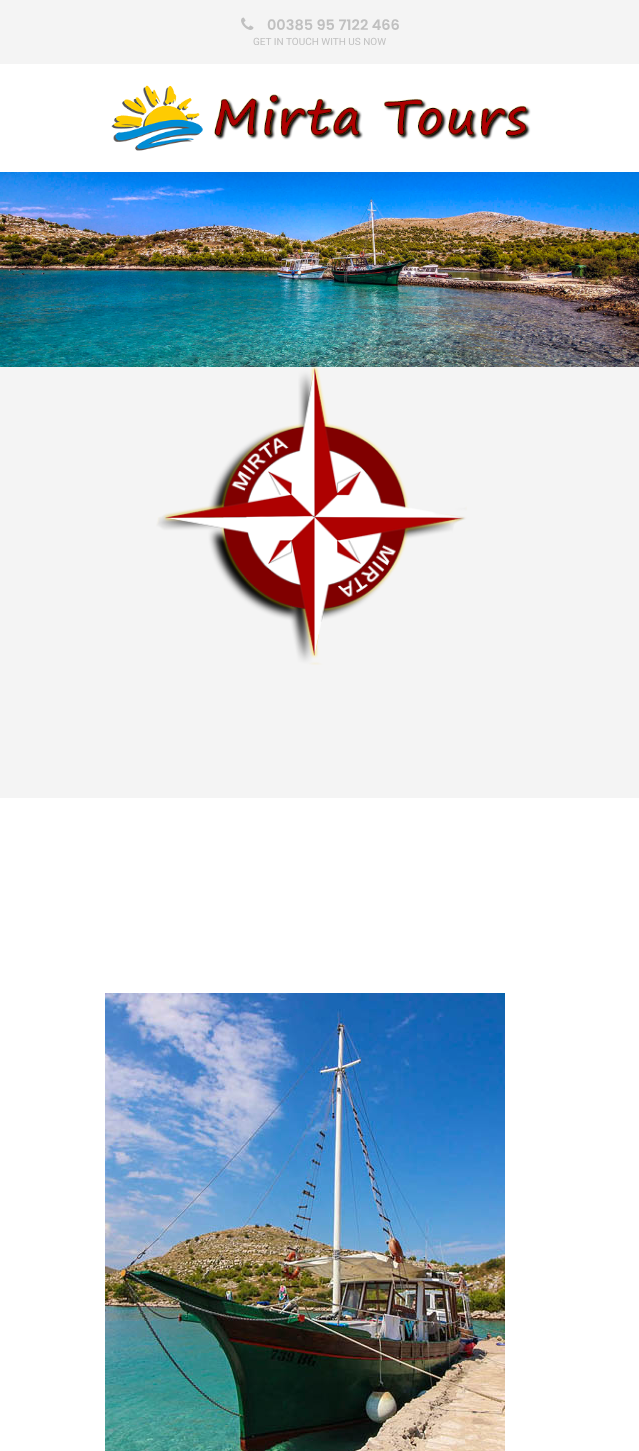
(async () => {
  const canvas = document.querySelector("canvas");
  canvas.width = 639;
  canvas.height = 1451;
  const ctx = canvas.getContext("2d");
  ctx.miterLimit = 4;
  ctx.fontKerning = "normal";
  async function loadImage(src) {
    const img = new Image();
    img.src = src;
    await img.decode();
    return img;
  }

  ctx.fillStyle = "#ffffff";
  ctx.fillRect(0, 0, 639, 1451);
  ctx.fillStyle = "#f4f4f4";
  ctx.fillRect(0, 0, 639, 64);
  ctx.drawImage(await loadImage("img/1.png"), 241, 17, 13, 13);
  ctx.drawImage(await loadImage("img/2.png"), 111, 85, 420, 66);
  ctx.fillRect(0, 367, 639, 431);
  ctx.drawImage(await loadImage("img/3.png"), 0, 172, 639, 195);
  ctx.drawImage(await loadImage("img/4.png"), 156, 366, 311, 299);
  ctx.drawImage(await loadImage("img/5.png"), 105, 993, 400, 458);
  ctx.font = "600 14.5px Poppins";
  ctx.fillStyle = "#c0c0c0";
  ctx.fillText("00385 95 7122 466", 267, 30);
  ctx.font = "10px Roboto";
  ctx.fillText("GET IN TOUCH WITH US NOW", 253, 45);
})();
